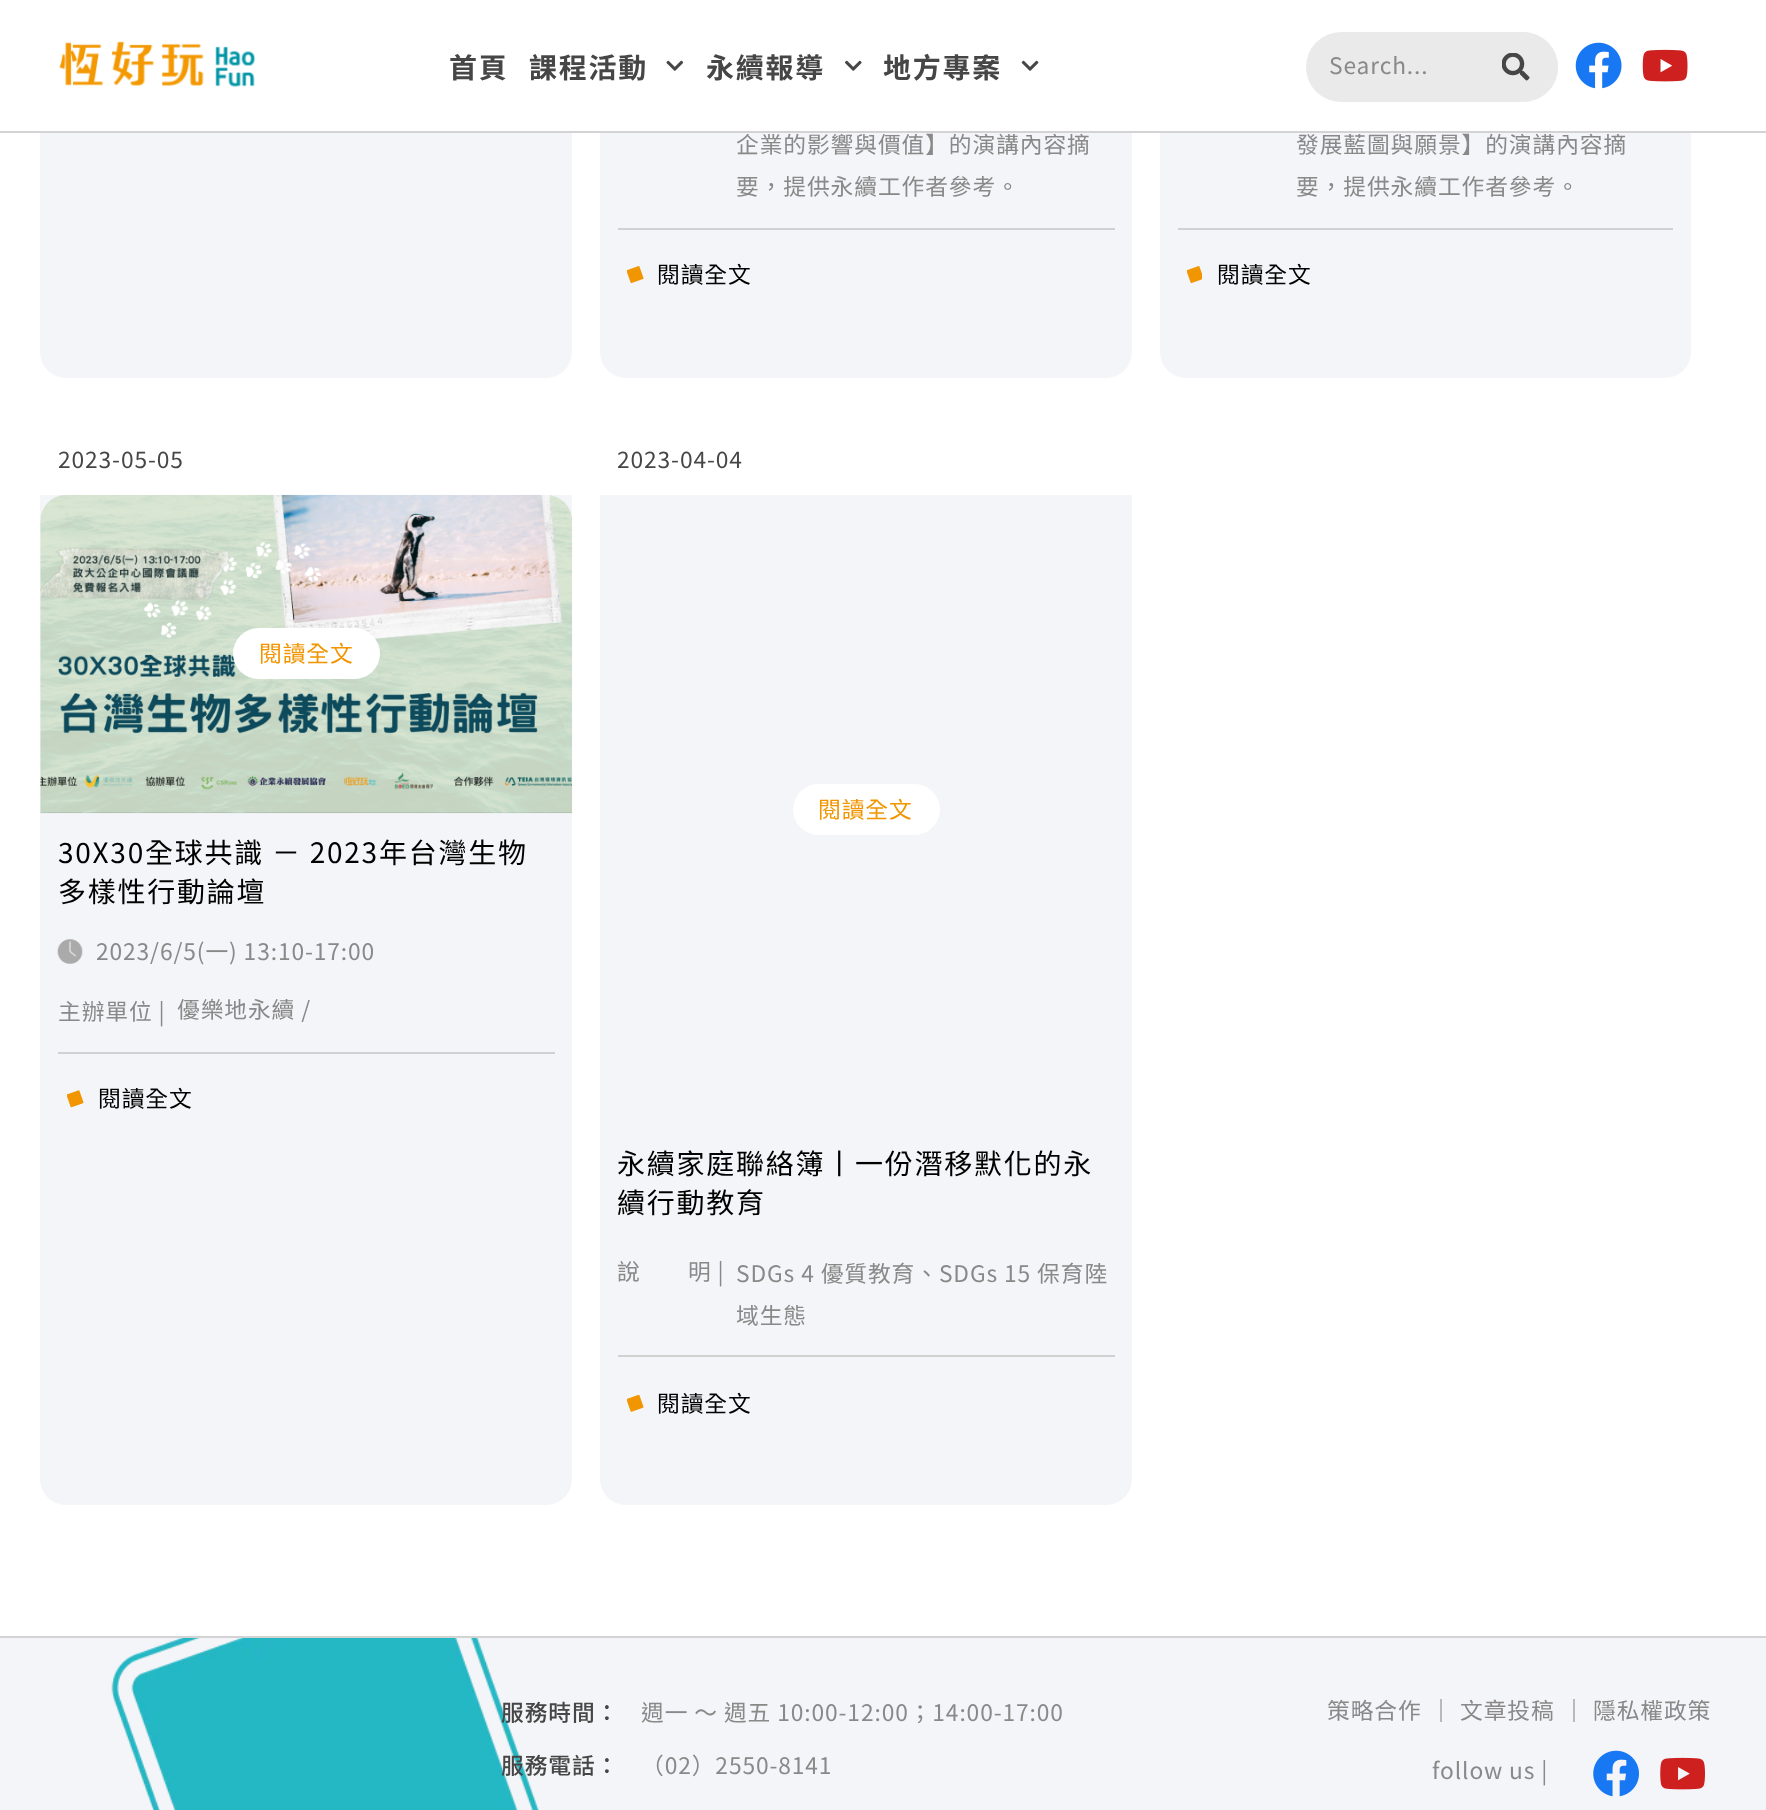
(async () => {
  const canvas = document.querySelector("canvas");
  canvas.width = 1766;
  canvas.height = 1810;
  const ctx = canvas.getContext("2d");
  ctx.miterLimit = 4;
  ctx.fontKerning = "normal";
  async function loadImage(src) {
    const img = new Image();
    img.src = src;
    await img.decode();
    return img;
  }

  ctx.fillStyle = "#ffffff";
  ctx.fillRect(0, 0, 1766, 1810);
  ctx.fillStyle = "#f4f5f8";
  ctx.beginPath();
  ctx.roundRect(40, -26, 532, 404, 26);
  ctx.fill();
  ctx.beginPath();
  ctx.roundRect(600, -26, 532, 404, 26);
  ctx.fill();
  ctx.beginPath();
  ctx.roundRect(1160, -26, 531, 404, 26);
  ctx.fill();
  ctx.fillStyle = "#d3d3d3";
  ctx.fillRect(0, 131, 1766, 2);
  ctx.fillStyle = "#ffffff";
  ctx.fillRect(40, 0, 532, 131);
  ctx.drawImage(await loadImage("img/1.png"), 59, 41, 197, 46);
  ctx.fillRect(600, 0, 532, 131);
  ctx.drawImage(await loadImage("img/2.png"), 666, 60, 18, 11);
  ctx.drawImage(await loadImage("img/3.png"), 845, 60, 17, 11);
  ctx.drawImage(await loadImage("img/4.png"), 1021, 60, 18, 11);
  ctx.fillRect(1160, 0, 531, 131);
  ctx.fillStyle = "#eaeaea";
  ctx.beginPath();
  ctx.roundRect(1306, 32, 252, 70, 35);
  ctx.fill();
  ctx.beginPath();
  ctx.roundRect(1474, 32, 84, 70, [0, 35, 35, 0]);
  ctx.fill();
  ctx.drawImage(await loadImage("img/5.png"), 1502, 53, 28, 28);
  ctx.drawImage(await loadImage("img/6.png"), 1575, 42, 47, 47);
  ctx.drawImage(await loadImage("img/7.png"), 1642, 49, 46, 33);
  ctx.fillStyle = "#d1d1d1";
  ctx.fillRect(618, 228, 497, 2);
  ctx.drawImage(await loadImage("img/8.png"), 627, 266, 17, 17);
  ctx.fillRect(1178, 228, 495, 2);
  ctx.drawImage(await loadImage("img/9.png"), 1187, 266, 15, 17);
  ctx.fillStyle = "#f4f5f8";
  ctx.beginPath();
  ctx.roundRect(40, 439, 532, 1066, 26);
  ctx.fill();
  ctx.fillStyle = "#ffffff";
  ctx.fillRect(40, 439, 532, 56);
  ctx.drawImage(await loadImage("img/10.png"), 40, 494, 533, 320);
  ctx.beginPath();
  ctx.roundRect(233, 628, 147, 51, 25.5);
  ctx.fill();
  ctx.drawImage(await loadImage("img/11.png"), 57, 939, 26, 25);
  ctx.fillStyle = "#d1d1d1";
  ctx.fillRect(58, 1052, 497, 2);
  ctx.drawImage(await loadImage("img/12.png"), 67, 1090, 17, 18);
  ctx.fillStyle = "#f4f5f8";
  ctx.beginPath();
  ctx.roundRect(600, 439, 532, 1066, 26);
  ctx.fill();
  ctx.fillStyle = "#ffffff";
  ctx.fillRect(600, 439, 532, 56);
  ctx.beginPath();
  ctx.roundRect(793, 784, 147, 51, 25.5);
  ctx.fill();
  ctx.fillStyle = "#d1d1d1";
  ctx.fillRect(618, 1355, 497, 2);
  ctx.drawImage(await loadImage("img/13.png"), 627, 1395, 17, 17);
  ctx.fillStyle = "#f4f5f8";
  ctx.fillRect(0, 1638, 1766, 172);
  ctx.drawImage(await loadImage("img/14.png"), 111, 1638, 428, 172);
  for (const [x, y, w, h, color] of [
    [0, 1636, 1766, 2, "#d3d3d3"],
    [1440, 1699, 2, 23, "#b9b9b9"],
    [1573, 1699, 2, 23, "#b9b9b9"],
  ]) {
    ctx.fillStyle = color;
    ctx.fillRect(x, y, w, h);
  }
  ctx.drawImage(await loadImage("img/15.png"), 1593, 1750, 46, 47);
  ctx.drawImage(await loadImage("img/16.png"), 1660, 1757, 45, 33);
  ctx.letterSpacing = "1.75px";
  ctx.font = "bold 28px Noto Sans TC";
  ctx.fillStyle = "#464646";
  for (const [text, x, y] of [
    ["首頁", 449, 78],
    ["課程活動", 529, 78],
    ["永續報導", 706, 78],
    ["地方專案", 883, 78],
  ]) {
    ctx.fillText(text, x, y);
  }
  ctx.letterSpacing = "0.9px";
  ctx.font = "22.75px Noto Sans TC";
  ctx.fillStyle = "#898989";
  for (const [text, x, y] of [
    ["Search...", 1329, 74],
    ["企業的影響與價值】的演講內容摘", 736, 153],
    ["要，提供永續工作者參考。", 736, 195],
  ]) {
    ctx.fillText(text, x, y);
  }
  ctx.fillStyle = "#000000";
  ctx.fillText("閱讀全文", 657, 283);
  ctx.fillStyle = "#898989";
  ctx.fillText("發展藍圖與願景】的演講內容摘", 1296, 153);
  ctx.fillText("要，提供永續工作者參考。", 1296, 195);
  ctx.fillStyle = "#000000";
  ctx.fillText("閱讀全文", 1217, 283);
  ctx.fillStyle = "#464646";
  ctx.fillText("2023-05-05", 58, 468);
  ctx.fillStyle = "#f19500";
  ctx.fillText("閱讀全文", 259, 662);
  ctx.letterSpacing = "1.75px";
  ctx.font = "28px Noto Sans TC";
  ctx.fillStyle = "#000000";
  ctx.fillText("30X30全球共識 － 2023年台灣生物", 58, 863);
  ctx.fillText("多樣性行動論壇", 58, 902);
  ctx.letterSpacing = "0.9px";
  ctx.font = "22.75px Noto Sans TC";
  ctx.fillStyle = "#898989";
  for (const [text, x, y] of [
    ["2023/6/5(一) 13:10-17:00", 96, 960],
    ["主辦單位 |", 58, 1020],
    ["優樂地永續 /", 177, 1018],
  ]) {
    ctx.fillText(text, x, y);
  }
  ctx.fillStyle = "#000000";
  ctx.fillText("閱讀全文", 98, 1107);
  ctx.fillStyle = "#464646";
  ctx.fillText("2023-04-04", 617, 468);
  ctx.fillStyle = "#f19500";
  ctx.fillText("閱讀全文", 818, 818);
  ctx.letterSpacing = "1.75px";
  ctx.font = "28px Noto Sans TC";
  ctx.fillStyle = "#000000";
  ctx.fillText("永續家庭聯絡簿丨一份潛移默化的永", 617, 1174);
  ctx.fillText("續行動教育", 617, 1213);
  ctx.letterSpacing = "0.9px";
  ctx.font = "22.75px Noto Sans TC";
  ctx.fillStyle = "#898989";
  for (const [text, x, y] of [
    ["說　　明 |", 617, 1280],
    ["SDGs 4 優質教育、SDGs 15 保育陸", 736, 1282],
    ["域生態", 736, 1324],
  ]) {
    ctx.fillText(text, x, y);
  }
  ctx.fillStyle = "#000000";
  ctx.fillText("閱讀全文", 657, 1412);
  ctx.font = "500 22.75px Noto Sans TC";
  ctx.fillStyle = "#464646";
  ctx.fillText("服務時間：", 501, 1721);
  ctx.font = "22.75px Noto Sans TC";
  ctx.fillStyle = "#898989";
  ctx.fillText("週一 ～ 週五 10:00-12:00；14:00-17:00", 641, 1721);
  ctx.font = "500 22.75px Noto Sans TC";
  ctx.fillStyle = "#464646";
  ctx.fillText("服務電話：", 501, 1774);
  ctx.font = "22.75px Noto Sans TC";
  ctx.fillStyle = "#898989";
  for (const [text, x, y] of [
    ["（02）2550-8141", 641, 1774],
    ["策略合作", 1327, 1719],
    ["文章投稿", 1460, 1719],
    ["隱私權政策", 1593, 1719],
    ["follow us |", 1432, 1779],
  ]) {
    ctx.fillText(text, x, y);
  }
})();
